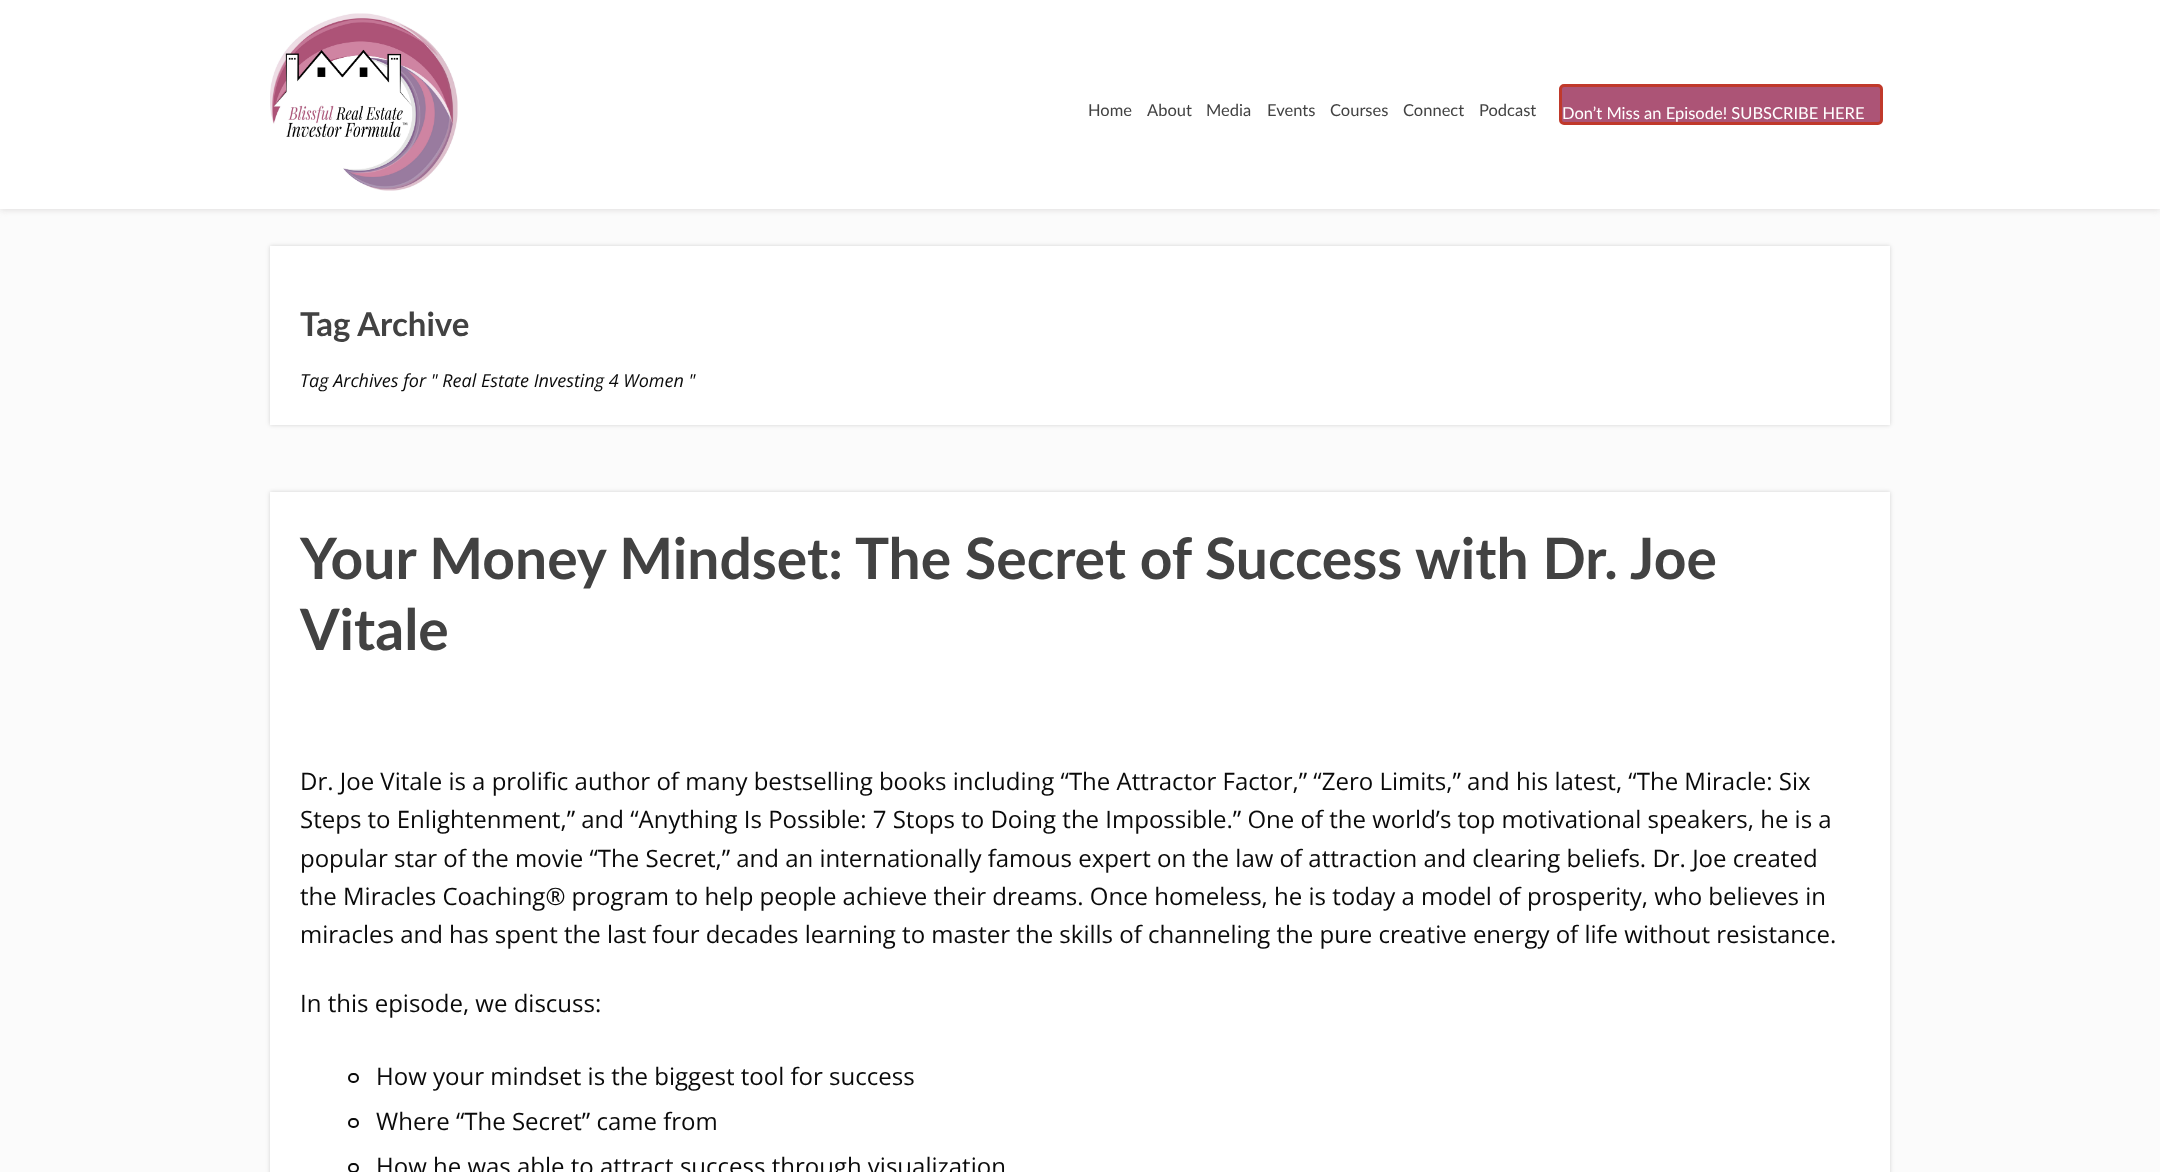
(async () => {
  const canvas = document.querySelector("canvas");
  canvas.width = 2160;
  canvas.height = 1172;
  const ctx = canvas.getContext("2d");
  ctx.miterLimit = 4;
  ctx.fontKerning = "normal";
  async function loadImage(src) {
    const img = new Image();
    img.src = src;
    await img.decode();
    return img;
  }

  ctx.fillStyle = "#fbfbfb";
  ctx.fillRect(0, 0, 2160, 1172);
  ctx.fillStyle = "#dfdddd";
  ctx.filter = "blur(3px)";
  ctx.beginPath();
  ctx.rect(0, 2, 2160, 208);
  ctx.fill();
  ctx.filter = "none";
  ctx.fillStyle = "#ffffff";
  ctx.fillRect(0, 0, 2160, 209);
  ctx.drawImage(await loadImage("img/1.png"), 270, 13, 188, 178);
  ctx.fillStyle = "#ac5476";
  ctx.beginPath();
  ctx.roundRect(1560.5, 85.5, 321, 38, 3.5);
  ctx.fill();
  ctx.strokeStyle = "#c0392b";
  ctx.lineWidth = 3;
  ctx.stroke();
  ctx.fillStyle = "rgba(1, 1, 1, 0.16)";
  ctx.filter = "blur(2px)";
  ctx.beginPath();
  ctx.rect(270, 246, 1620, 179);
  ctx.fill();
  ctx.filter = "none";
  ctx.fillStyle = "#ffffff";
  ctx.fillRect(270, 246, 1620, 179);
  ctx.fillStyle = "rgba(1, 1, 1, 0.16)";
  ctx.filter = "blur(2px)";
  ctx.beginPath();
  ctx.rect(270, 492, 1620, 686);
  ctx.fill();
  ctx.filter = "none";
  ctx.fillStyle = "#ffffff";
  ctx.fillRect(270, 492, 1620, 680);
  ctx.beginPath();
  ctx.roundRect(349, 1074, 9, 8, 4);
  ctx.strokeStyle = "#0a0a0a";
  ctx.lineWidth = 2;
  ctx.stroke();
  ctx.beginPath();
  ctx.roundRect(349, 1119, 9, 8, 4);
  ctx.stroke();
  ctx.beginPath();
  ctx.roundRect(349, 1164, 9, 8, 4);
  ctx.stroke();
  ctx.font = "16.5px Lato";
  ctx.fillStyle = "#424242";
  for (const [text, x, y] of [
    ["Home", 1088, 116],
    ["About", 1147, 116],
    ["Media", 1206, 116],
    ["Events", 1267, 116],
    ["Courses", 1330, 116],
    ["Connect", 1403, 116],
    ["Podcast", 1479, 116],
  ]) {
    ctx.fillText(text, x, y);
  }
  ctx.fillStyle = "#ffffff";
  ctx.fillText("Don’t Miss an Episode! SUBSCRIBE HERE", 1562, 119);
  ctx.font = "bold 33px Lato";
  ctx.fillStyle = "#424242";
  ctx.fillText("Tag Archive", 300, 336);
  ctx.font = "italic 18px Open Sans";
  ctx.fillStyle = "#0a0a0a";
  ctx.fillText("Tag Archives for \" Real Estate Investing 4 Women \"", 300, 387);
  ctx.font = "bold 57px Lato";
  ctx.fillStyle = "#424242";
  ctx.fillText("Your Money Mindset: The Secret of Success with Dr. Joe", 300, 579);
  ctx.fillText("Vitale", 300, 650);
  ctx.font = "24px Open Sans";
  ctx.fillStyle = "#0a0a0a";
  for (const [text, x, y] of [
    ["Dr. Joe Vitale is a prolific author of many bestselling books including “The Attractor Factor,” “Zero Limits,” and his latest, “The Miracle: Six", 300, 790],
    ["Steps to Enlightenment,” and “Anything Is Possible: 7 Stops to Doing the Impossible.” One of the world’s top motivational speakers, he is a", 300, 828],
    ["popular star of the movie “The Secret,” and an internationally famous expert on the law of attraction and clearing beliefs. Dr. Joe created", 300, 867],
    ["the Miracles Coaching® program to help people achieve their dreams. Once homeless, he is today a model of prosperity, who believes in", 300, 905],
    ["miracles and has spent the last four decades learning to master the skills of channeling the pure creative energy of life without resistance.", 300, 943],
    ["In this episode, we discuss:", 300, 1012],
    ["How your mindset is the biggest tool for success", 376, 1085],
    ["Where “The Secret” came from", 376, 1130],
    ["How he was able to attract success through visualization", 376, 1175],
  ]) {
    ctx.fillText(text, x, y);
  }
})();
